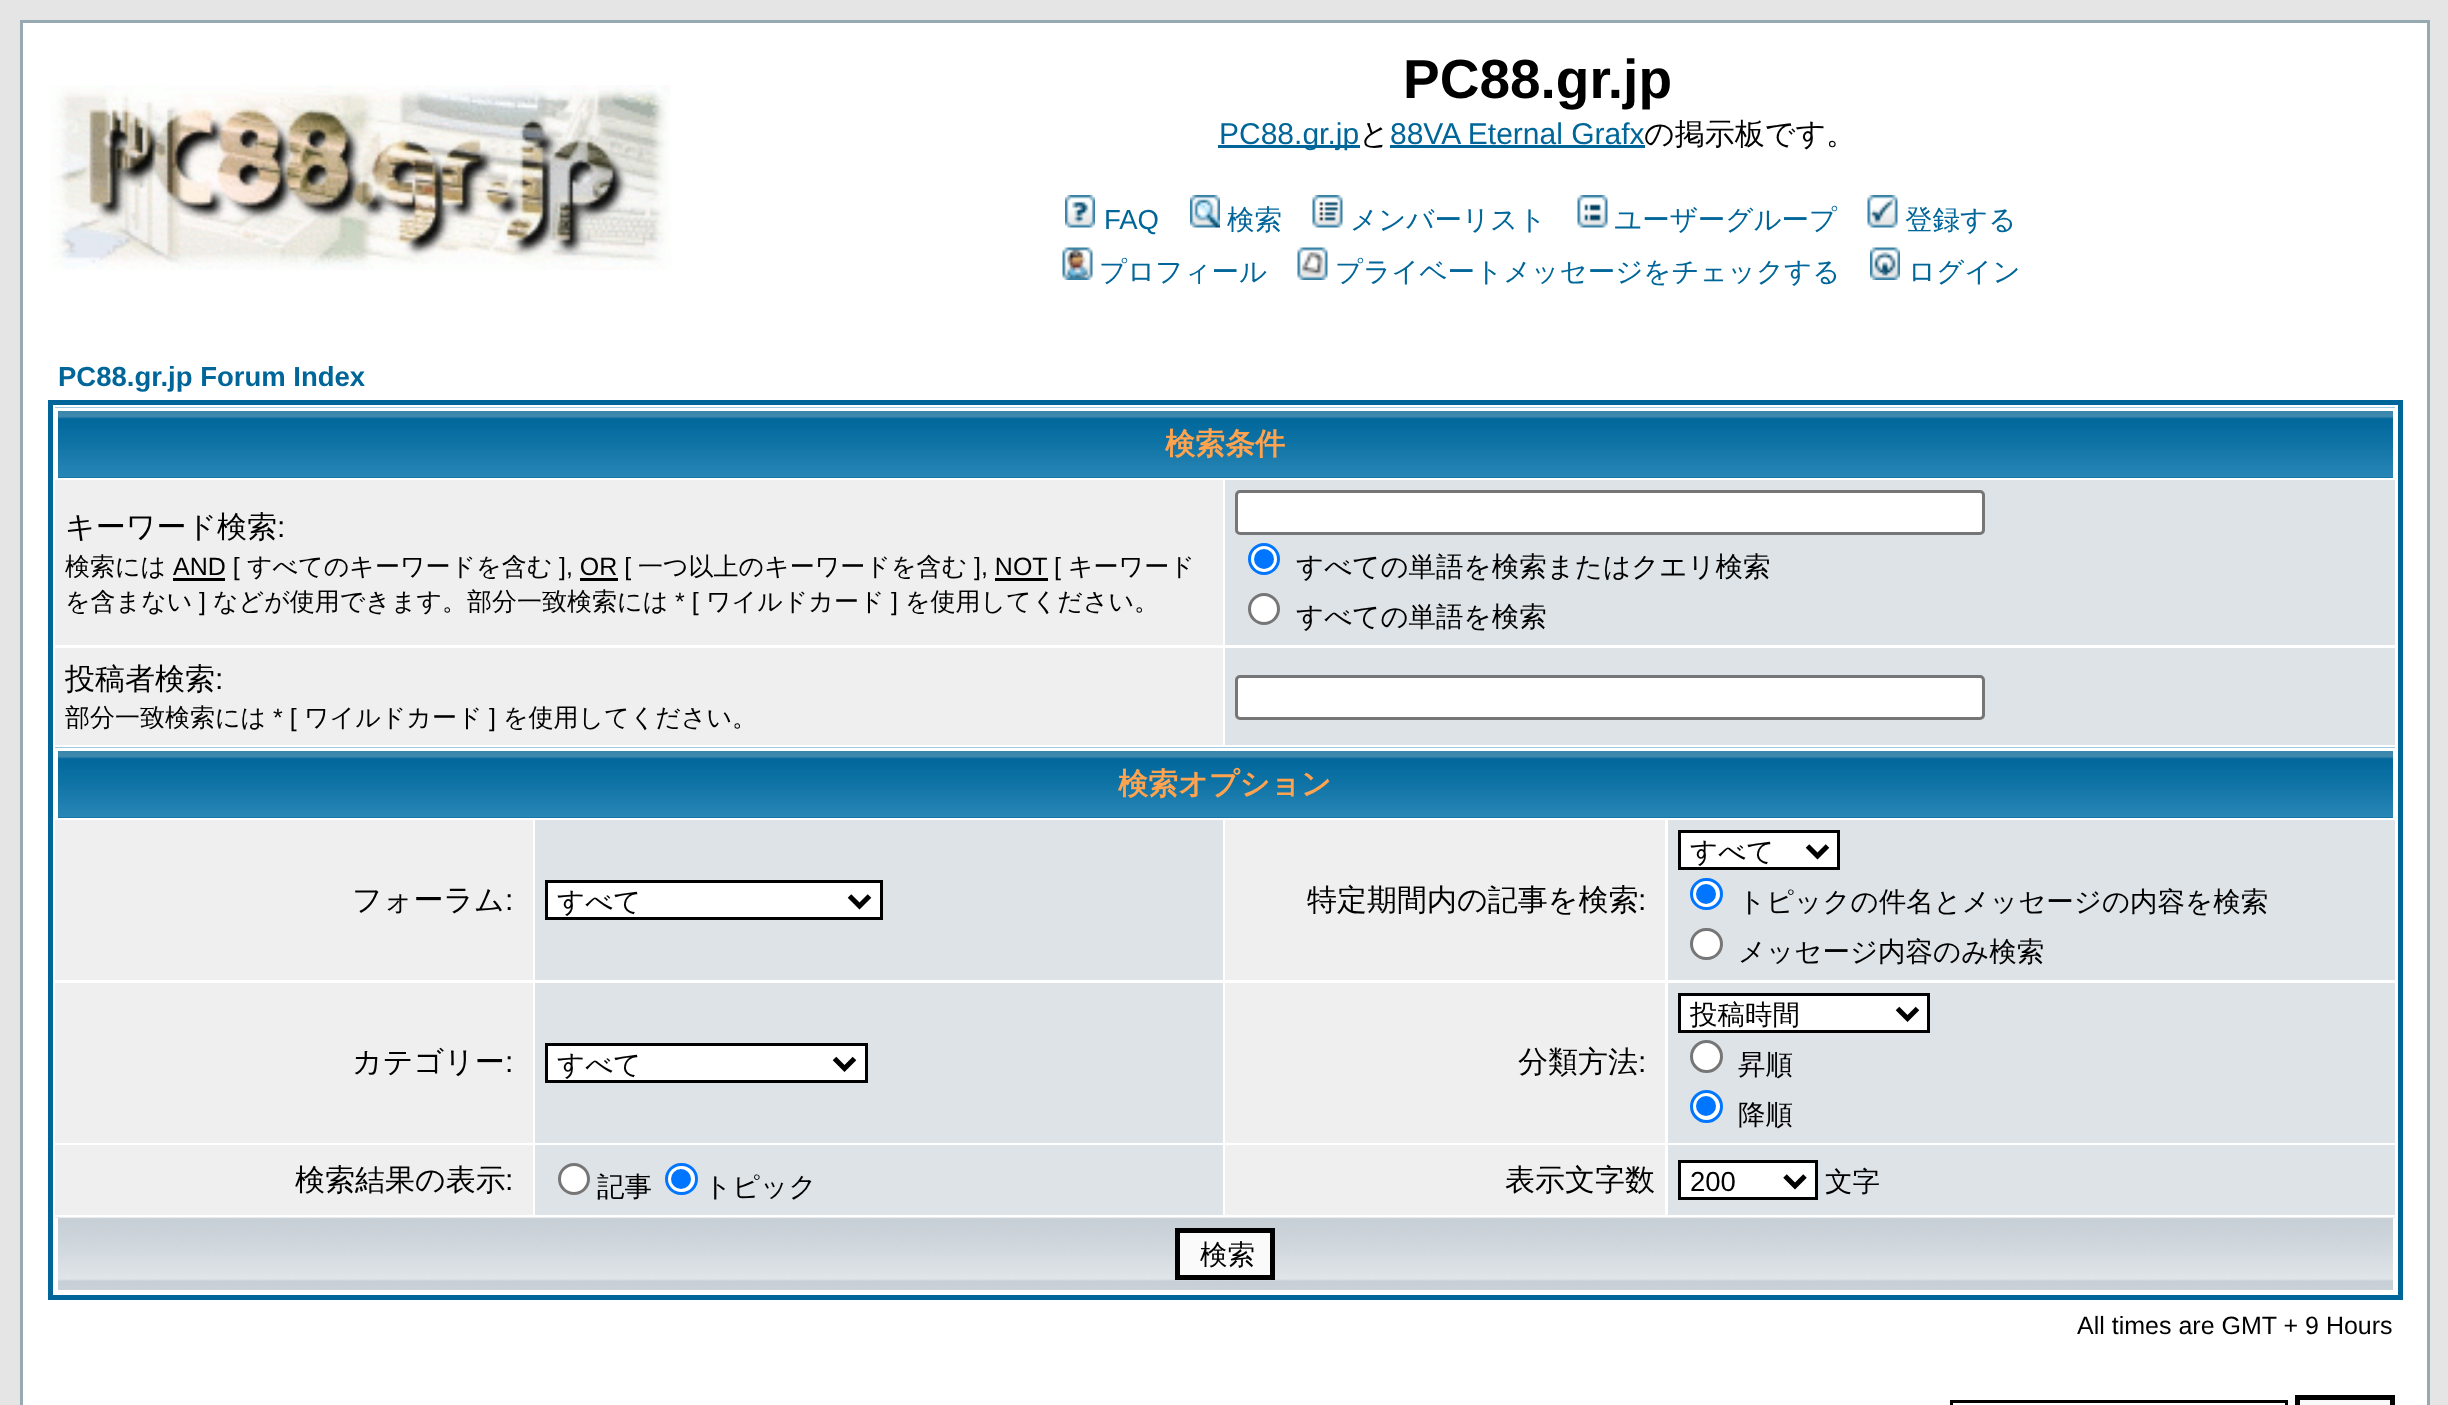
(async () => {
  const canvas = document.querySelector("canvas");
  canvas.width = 2448;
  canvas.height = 1405;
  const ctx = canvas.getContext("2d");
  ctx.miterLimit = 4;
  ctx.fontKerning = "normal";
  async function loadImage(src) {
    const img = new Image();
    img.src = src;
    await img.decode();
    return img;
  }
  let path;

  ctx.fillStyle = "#e5e5e5";
  ctx.fillRect(0, 0, 2448, 1405);
  ctx.fillStyle = "#ffffff";
  ctx.beginPath();
  ctx.rect(21.5, 21.5, 2407, 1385);
  ctx.fill();
  ctx.strokeStyle = "#98aab1";
  ctx.lineWidth = 3;
  ctx.stroke();
  ctx.drawImage(await loadImage("img/1.png"), 50, 85, 621, 185);
  ctx.fillStyle = "#006699";
  ctx.fillRect(1218, 145, 142, 3);
  ctx.fillRect(1390, 145, 255, 3);
  ctx.drawImage(await loadImage("img/2.png"), 1065, 195, 30, 33);
  ctx.drawImage(await loadImage("img/3.png"), 1190, 195, 30, 33);
  ctx.drawImage(await loadImage("img/4.png"), 1312, 195, 31, 33);
  ctx.drawImage(await loadImage("img/5.png"), 1577, 195, 31, 33);
  ctx.drawImage(await loadImage("img/6.png"), 1867, 195, 31, 33);
  ctx.drawImage(await loadImage("img/7.png"), 1062, 247, 31, 33);
  ctx.drawImage(await loadImage("img/8.png"), 1297, 247, 31, 33);
  ctx.drawImage(await loadImage("img/9.png"), 1870, 247, 30, 33);
  ctx.strokeStyle = "#006699";
  ctx.lineWidth = 5;
  ctx.strokeRect(50.5, 402.5, 2350, 895);
  ctx.fillRect(58, 477, 2335, 1);
  ctx.drawImage(await loadImage("img/10.png"), 55, 407, 2340, 71);
  for (const [x, y, w, h, color] of [
    [55, 408, 2340, 3, "#ffffff"],
    [2393, 408, 2, 70, "#ffffff"],
    [55, 408, 3, 70, "#ffffff"],
    [55, 480, 1168, 165, "#efefef"],
    [173, 578, 52, 3, "#000000"],
    [580, 578, 38, 3, "#000000"],
    [995, 578, 53, 3, "#000000"],
    [1225, 480, 1170, 165, "#dee3e7"],
  ]) {
    ctx.fillStyle = color;
    ctx.fillRect(x, y, w, h);
  }
  ctx.fillStyle = "#ffffff";
  ctx.beginPath();
  ctx.roundRect(1236.5, 491.5, 747, 42, 3.5);
  ctx.fill();
  ctx.strokeStyle = "#767676";
  ctx.lineWidth = 3;
  ctx.stroke();
  ctx.beginPath();
  ctx.arc(1264, 559, 14.5, 0, Math.PI * 2);
  ctx.fill();
  ctx.strokeStyle = "#0075ff";
  ctx.stroke();
  ctx.fillStyle = "#0075ff";
  ctx.beginPath();
  ctx.arc(1264, 559, 10, 0, Math.PI * 2);
  ctx.fill();
  ctx.fillStyle = "#ffffff";
  ctx.beginPath();
  ctx.arc(1264, 609, 14.5, 0, Math.PI * 2);
  ctx.fill();
  ctx.strokeStyle = "#767676";
  ctx.stroke();
  ctx.fillStyle = "#efefef";
  ctx.fillRect(55, 648, 1168, 97);
  ctx.fillStyle = "#dee3e7";
  ctx.fillRect(1225, 648, 1170, 97);
  ctx.fillStyle = "#ffffff";
  ctx.beginPath();
  ctx.roundRect(1236.5, 676.5, 747, 42, 3.5);
  ctx.fill();
  ctx.stroke();
  ctx.fillStyle = "#006699";
  ctx.fillRect(58, 817, 2335, 1);
  ctx.drawImage(await loadImage("img/10.png"), 55, 747, 2340, 71);
  for (const [x, y, w, h, color] of [
    [55, 748, 2340, 3, "#ffffff"],
    [2393, 748, 2, 70, "#ffffff"],
    [55, 748, 3, 70, "#ffffff"],
    [55, 820, 478, 160, "#efefef"],
    [535, 820, 688, 160, "#dee3e7"],
  ]) {
    ctx.fillStyle = color;
    ctx.fillRect(x, y, w, h);
  }
  ctx.fillStyle = "#ffffff";
  ctx.beginPath();
  ctx.rect(546.5, 881.5, 335, 37);
  ctx.fill();
  ctx.strokeStyle = "#000000";
  ctx.stroke();
  path = new Path2D("M849.5 896L859.5 906L869.5 896");
  ctx.lineWidth = 5;
  ctx.stroke(path);
  ctx.fillStyle = "#efefef";
  ctx.fillRect(1225, 820, 440, 160);
  ctx.fillStyle = "#dee3e7";
  ctx.fillRect(1668, 820, 727, 160);
  ctx.fillStyle = "#ffffff";
  ctx.beginPath();
  ctx.rect(1679.5, 831.5, 159, 37);
  ctx.fill();
  ctx.lineWidth = 3;
  ctx.stroke();
  path = new Path2D("M1807.5 846L1817.5 856L1827.5 846");
  ctx.lineWidth = 5;
  ctx.stroke(path);
  ctx.beginPath();
  ctx.roundRect(1691.5, 879.5, 30, 29, 14.5);
  ctx.fill();
  ctx.strokeStyle = "#0075ff";
  ctx.lineWidth = 3;
  ctx.stroke();
  ctx.fillStyle = "#0075ff";
  ctx.beginPath();
  ctx.arc(1706, 894, 10, 0, Math.PI * 2);
  ctx.fill();
  ctx.fillStyle = "#ffffff";
  ctx.beginPath();
  ctx.roundRect(1691.5, 929.5, 30, 29, 14.5);
  ctx.fill();
  ctx.strokeStyle = "#767676";
  ctx.stroke();
  ctx.fillStyle = "#efefef";
  ctx.fillRect(55, 983, 478, 160);
  ctx.fillStyle = "#dee3e7";
  ctx.fillRect(535, 983, 688, 160);
  ctx.fillStyle = "#ffffff";
  ctx.beginPath();
  ctx.rect(546.5, 1044.5, 320, 37);
  ctx.fill();
  ctx.strokeStyle = "#000000";
  ctx.stroke();
  path = new Path2D("M834.5 1058.5L844.5 1068.5L854.5 1058.5");
  ctx.lineWidth = 5;
  ctx.stroke(path);
  ctx.fillStyle = "#efefef";
  ctx.fillRect(1225, 983, 440, 160);
  ctx.fillStyle = "#dee3e7";
  ctx.fillRect(1668, 983, 727, 160);
  ctx.fillStyle = "#ffffff";
  ctx.beginPath();
  ctx.rect(1679.5, 994.5, 249, 37);
  ctx.fill();
  ctx.lineWidth = 3;
  ctx.stroke();
  path = new Path2D("M1897.5 1008.5L1907.5 1018.5L1917.5 1008.5");
  ctx.lineWidth = 5;
  ctx.stroke(path);
  ctx.beginPath();
  ctx.arc(1706.5, 1056.5, 15, 0, Math.PI * 2);
  ctx.fill();
  ctx.strokeStyle = "#767676";
  ctx.lineWidth = 3;
  ctx.stroke();
  ctx.beginPath();
  ctx.arc(1706.5, 1106.5, 15, 0, Math.PI * 2);
  ctx.fill();
  ctx.strokeStyle = "#0075ff";
  ctx.stroke();
  ctx.fillStyle = "#0075ff";
  ctx.beginPath();
  ctx.arc(1706, 1106, 10, 0, Math.PI * 2);
  ctx.fill();
  ctx.fillStyle = "#efefef";
  ctx.fillRect(55, 1145, 478, 70);
  ctx.fillStyle = "#dee3e7";
  ctx.fillRect(535, 1145, 688, 70);
  ctx.fillStyle = "#ffffff";
  ctx.beginPath();
  ctx.arc(574, 1179, 14.5, 0, Math.PI * 2);
  ctx.fill();
  ctx.strokeStyle = "#767676";
  ctx.stroke();
  ctx.beginPath();
  ctx.roundRect(666.5, 1164.5, 30, 29, 14.5);
  ctx.fill();
  ctx.strokeStyle = "#0075ff";
  ctx.stroke();
  ctx.fillStyle = "#0075ff";
  ctx.beginPath();
  ctx.arc(681, 1179, 10, 0, Math.PI * 2);
  ctx.fill();
  ctx.fillStyle = "#efefef";
  ctx.fillRect(1225, 1145, 440, 70);
  ctx.fillStyle = "#dee3e7";
  ctx.fillRect(1668, 1145, 727, 70);
  ctx.fillStyle = "#ffffff";
  ctx.beginPath();
  ctx.rect(1679.5, 1161.5, 137, 37);
  ctx.fill();
  ctx.strokeStyle = "#000000";
  ctx.stroke();
  path = new Path2D("M1785 1176L1795 1186L1805 1176");
  ctx.lineWidth = 5;
  ctx.stroke(path);
  ctx.drawImage(await loadImage("img/11.png"), 55, 1217, 2340, 73);
  ctx.fillRect(2393, 1218, 2, 75);
  ctx.fillRect(55, 1218, 3, 75);
  ctx.fillStyle = "#fafafa";
  ctx.beginPath();
  ctx.rect(1177.5, 1230.5, 95, 47);
  ctx.fill();
  ctx.stroke();
  ctx.lineWidth = 3;
  ctx.strokeRect(1951.5, 1401.5, 335, 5);
  ctx.beginPath();
  ctx.rect(2297.5, 1397.5, 95, 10);
  ctx.fill();
  ctx.lineWidth = 5;
  ctx.stroke();
  ctx.font = "bold 55px Liberation Sans";
  ctx.fillStyle = "#000000";
  ctx.fillText("PC88.gr.jp", 1403, 98);
  ctx.font = "30px Liberation Sans";
  ctx.fillStyle = "#006699";
  ctx.fillText("PC88.gr.jp", 1219, 144);
  ctx.font = "500 30px WenQuanYi Zen Hei";
  ctx.fillStyle = "#000000";
  ctx.fillText("と", 1359, 144);
  ctx.font = "30px Liberation Sans";
  ctx.fillStyle = "#006699";
  ctx.fillText("88VA Eternal Grafx", 1390, 144);
  ctx.font = "500 30px WenQuanYi Zen Hei";
  ctx.fillStyle = "#000000";
  ctx.fillText("の掲示板です。", 1644, 144);
  ctx.font = "27.5px Liberation Sans";
  ctx.fillStyle = "#006699";
  ctx.fillText("FAQ", 1104, 229);
  ctx.font = "500 27.5px WenQuanYi Zen Hei";
  for (const [text, x, y] of [
    ["検索", 1227, 229],
    ["メンバーリスト", 1350, 229],
    ["ユーザーグループ", 1614, 229],
    ["登録する", 1905, 229],
    ["プロフィール", 1099, 281],
    ["プライベートメッセージをチェックする", 1335, 281],
    ["ログイン", 1908, 281],
  ]) {
    ctx.fillText(text, x, y);
  }
  ctx.font = "bold 27.5px Liberation Sans";
  ctx.fillText("PC88.gr.jp Forum Index", 58, 386);
  ctx.font = "bold 30px WenQuanYi Zen Hei";
  ctx.fillStyle = "#ffa34f";
  ctx.fillText("検索条件", 1165, 454);
  ctx.font = "500 30px WenQuanYi Zen Hei";
  ctx.fillStyle = "#000000";
  ctx.fillText("キーワード検索", 65, 537);
  ctx.font = "30px Liberation Sans";
  ctx.fillText(":", 277, 537);
  ctx.font = "500 25px WenQuanYi Zen Hei";
  ctx.fillText("検索には", 65, 575);
  ctx.font = "25px Liberation Sans";
  ctx.fillText("AND [", 173, 575);
  ctx.font = "500 25px WenQuanYi Zen Hei";
  ctx.fillText("すべてのキーワードを含む", 247, 575);
  ctx.font = "25px Liberation Sans";
  ctx.fillText("], OR [", 559, 575);
  ctx.font = "500 25px WenQuanYi Zen Hei";
  ctx.fillText("一つ以上のキーワードを含む", 638, 575);
  ctx.font = "25px Liberation Sans";
  ctx.fillText("], NOT", 974, 575);
  ctx.fillText("[", 1054, 575);
  ctx.font = "500 25px WenQuanYi Zen Hei";
  ctx.fillText("キーワード", 1068, 575);
  ctx.fillText("を含まない", 65, 610);
  ctx.font = "25px Liberation Sans";
  ctx.fillText("]", 199, 610);
  ctx.font = "500 25px WenQuanYi Zen Hei";
  ctx.fillText("などが使用できます。部分一致検索には", 213, 610);
  ctx.font = "25px Liberation Sans";
  ctx.fillText("* [", 675, 610);
  ctx.font = "500 25px WenQuanYi Zen Hei";
  ctx.fillText("ワイルドカード", 706, 610);
  ctx.font = "25px Liberation Sans";
  ctx.fillText("]", 891, 610);
  ctx.font = "500 25px WenQuanYi Zen Hei";
  ctx.fillText("を使用してください。", 905, 610);
  ctx.font = "500 27.5px WenQuanYi Zen Hei";
  ctx.fillText("すべての単語を検索またはクエリ検索", 1296, 576);
  ctx.fillText("すべての単語を検索", 1296, 626);
  ctx.font = "500 30px WenQuanYi Zen Hei";
  ctx.fillText("投稿者検索", 65, 689);
  ctx.font = "30px Liberation Sans";
  ctx.fillText(":", 215, 689);
  ctx.font = "500 25px WenQuanYi Zen Hei";
  ctx.fillText("部分一致検索には", 65, 726);
  ctx.font = "25px Liberation Sans";
  ctx.fillText("* [", 273, 726);
  ctx.font = "500 25px WenQuanYi Zen Hei";
  ctx.fillText("ワイルドカード", 304, 726);
  ctx.font = "25px Liberation Sans";
  ctx.fillText("]", 489, 726);
  ctx.font = "500 25px WenQuanYi Zen Hei";
  ctx.fillText("を使用してください。", 503, 726);
  ctx.font = "bold 30px WenQuanYi Zen Hei";
  ctx.fillStyle = "#ffa34f";
  ctx.fillText("検索オプション", 1118, 794);
  ctx.font = "500 30px WenQuanYi Zen Hei";
  ctx.fillStyle = "#000000";
  ctx.fillText("フォーラム", 352, 910);
  ctx.font = "30px Liberation Sans";
  ctx.fillText(":", 505, 910);
  ctx.font = "500 27.5px WenQuanYi Zen Hei";
  ctx.fillText("すべて", 557, 911);
  ctx.font = "500 30px WenQuanYi Zen Hei";
  ctx.fillText("特定期間内の記事を検索", 1307, 910);
  ctx.font = "30px Liberation Sans";
  ctx.fillText(":", 1638, 910);
  ctx.font = "500 27.5px WenQuanYi Zen Hei";
  for (const [text, x, y] of [
    ["すべて", 1690, 861],
    ["トピックの件名とメッセージの内容を検索", 1738, 911],
    ["メッセージ内容のみ検索", 1738, 961],
  ]) {
    ctx.fillText(text, x, y);
  }
  ctx.font = "500 30px WenQuanYi Zen Hei";
  ctx.fillText("カテゴリー", 352, 1072);
  ctx.font = "30px Liberation Sans";
  ctx.fillText(":", 505, 1072);
  ctx.font = "500 27.5px WenQuanYi Zen Hei";
  ctx.fillText("すべて", 557, 1074);
  ctx.font = "500 30px WenQuanYi Zen Hei";
  ctx.fillText("分類方法", 1518, 1072);
  ctx.font = "30px Liberation Sans";
  ctx.fillText(":", 1638, 1072);
  ctx.font = "500 27.5px WenQuanYi Zen Hei";
  for (const [text, x, y] of [
    ["投稿時間", 1690, 1024],
    ["昇順", 1738, 1074],
    ["降順", 1738, 1124],
  ]) {
    ctx.fillText(text, x, y);
  }
  ctx.font = "500 30px WenQuanYi Zen Hei";
  ctx.fillText("検索結果の表示", 295, 1190);
  ctx.font = "30px Liberation Sans";
  ctx.fillText(":", 505, 1190);
  ctx.font = "500 27.5px WenQuanYi Zen Hei";
  ctx.fillText("記事", 597, 1196);
  ctx.fillText("トピック", 704, 1196);
  ctx.font = "500 30px WenQuanYi Zen Hei";
  ctx.fillText("表示文字数", 1505, 1190);
  ctx.font = "27.5px Liberation Sans";
  ctx.fillText("200", 1690, 1191);
  ctx.font = "500 27.5px WenQuanYi Zen Hei";
  ctx.fillText("文字", 1825, 1191);
  ctx.fillText("検索", 1200, 1264);
  ctx.font = "25px Liberation Sans";
  ctx.fillText("All times are GMT + 9 Hours", 2077, 1334);
})();
